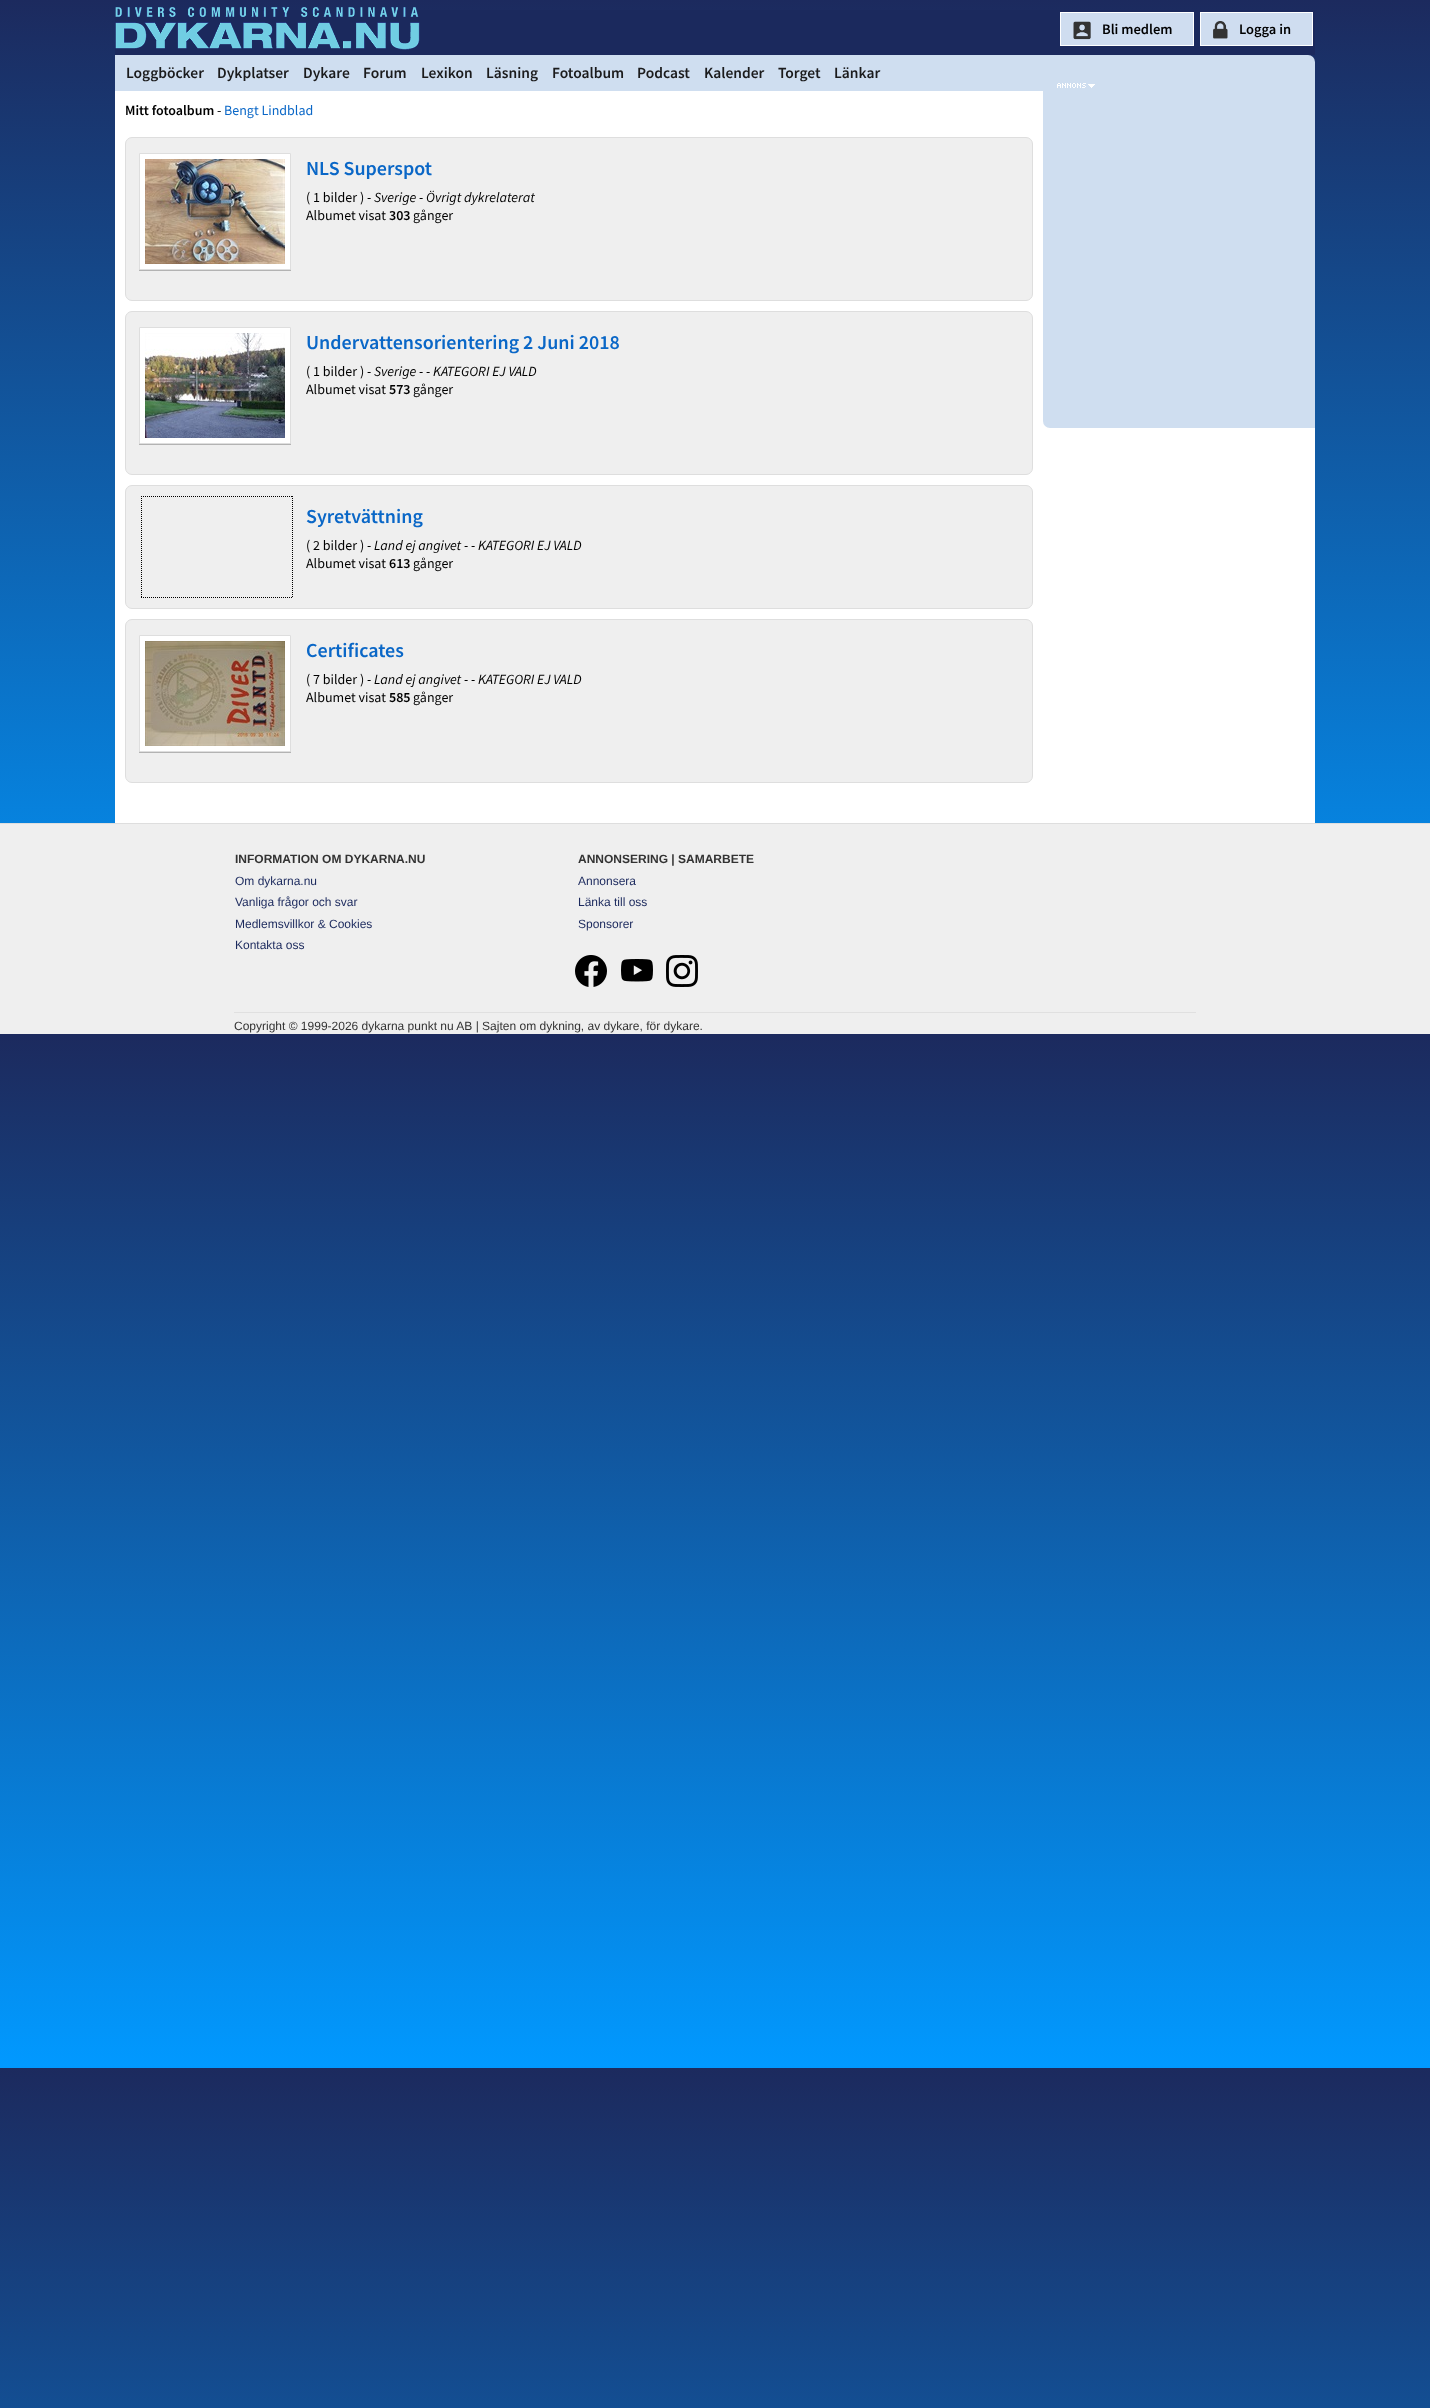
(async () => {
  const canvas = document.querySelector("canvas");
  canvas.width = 1430;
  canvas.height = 2408;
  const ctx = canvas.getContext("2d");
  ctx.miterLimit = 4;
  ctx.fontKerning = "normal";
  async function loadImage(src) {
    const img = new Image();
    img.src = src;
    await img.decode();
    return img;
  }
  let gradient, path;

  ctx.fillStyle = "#ffffff";
  ctx.fillRect(0, 0, 1430, 2408);
  gradient = ctx.createLinearGradient(715, 0, 715, 1034);
  gradient.addColorStop(0, "#1c2a5e");
  gradient.addColorStop(1, "#0199ff");
  ctx.fillStyle = gradient;
  ctx.fillRect(0, 0, 1430, 823);
  gradient = ctx.createLinearGradient(715, 1034, 715, 2068);
  gradient.addColorStop(0, "#1c2a5e");
  gradient.addColorStop(1, "#0199ff");
  ctx.fillStyle = gradient;
  ctx.fillRect(0, 1034, 1430, 1034);
  gradient = ctx.createLinearGradient(715, 2068, 715, 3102);
  gradient.addColorStop(0, "#1c2a5e");
  gradient.addColorStop(1, "#0199ff");
  ctx.fillStyle = gradient;
  ctx.fillRect(0, 2068, 1430, 340);
  ctx.fillStyle = "#1b295d";
  ctx.fillRect(115, 10, 1200, 45);
  ctx.drawImage(await loadImage("img/1.png"), 115, 7, 305, 43);
  ctx.fillStyle = "#cfddf0";
  ctx.fillRect(1061, 13, 132, 32);
  ctx.drawImage(await loadImage("img/2.png"), 1073, 21, 18, 19);
  ctx.strokeStyle = "#ffffff";
  ctx.strokeRect(1060.5, 12.5, 133, 33);
  ctx.fillRect(1201, 13, 111, 32);
  ctx.drawImage(await loadImage("img/3.png"), 1213, 21, 15, 18);
  ctx.strokeRect(1200.5, 12.5, 112, 33);
  ctx.fillStyle = "#cfdef0";
  ctx.beginPath();
  ctx.roundRect(115, 55, 1200, 36, [0, 7, 0, 0]);
  ctx.fill();
  ctx.fillStyle = "#ffffff";
  ctx.fillRect(115, 91, 1200, 732);
  ctx.fillStyle = "#efefef";
  ctx.beginPath();
  ctx.roundRect(125.5, 137.5, 907, 163, 6.5);
  ctx.fill();
  ctx.strokeStyle = "#dedede";
  ctx.stroke();
  ctx.fillStyle = "rgba(0, 0, 0, 0.25)";
  ctx.filter = "blur(0.5px)";
  ctx.beginPath();
  ctx.rect(139, 154, 152, 117);
  ctx.fill();
  ctx.filter = "none";
  ctx.fillStyle = "#ffffff";
  ctx.beginPath();
  ctx.rect(139.5, 153.5, 151, 116);
  ctx.fill();
  ctx.stroke();
  ctx.drawImage(await loadImage("img/4.png"), 145, 159, 140, 105);
  ctx.fillStyle = "#efefef";
  ctx.beginPath();
  ctx.roundRect(125.5, 311.5, 907, 163, 6.5);
  ctx.fill();
  ctx.stroke();
  ctx.fillStyle = "rgba(0, 0, 0, 0.25)";
  ctx.filter = "blur(0.5px)";
  ctx.beginPath();
  ctx.rect(139, 328, 152, 117);
  ctx.fill();
  ctx.filter = "none";
  ctx.fillStyle = "#ffffff";
  ctx.beginPath();
  ctx.rect(139.5, 327.5, 151, 116);
  ctx.fill();
  ctx.stroke();
  ctx.drawImage(await loadImage("img/5.png"), 145, 333, 140, 105);
  ctx.fillStyle = "#efefef";
  ctx.beginPath();
  ctx.roundRect(125.5, 485.5, 907, 123, 6.5);
  ctx.fill();
  ctx.stroke();
  path = new Path2D("M141 496.5H293");
  ctx.strokeStyle = "#000000";
  ctx.setLineDash([1, 1]);
  ctx.stroke(path);
  path = new Path2D("M292.5 496V598");
  ctx.stroke(path);
  path = new Path2D("M141 597.5H293");
  ctx.stroke(path);
  path = new Path2D("M141.5 496V598");
  ctx.stroke(path);
  ctx.beginPath();
  ctx.roundRect(125.5, 619.5, 907, 163, 6.5);
  ctx.fill();
  ctx.strokeStyle = "#dedede";
  ctx.setLineDash([]);
  ctx.stroke();
  ctx.fillStyle = "rgba(0, 0, 0, 0.25)";
  ctx.filter = "blur(0.5px)";
  ctx.beginPath();
  ctx.rect(139, 636, 152, 117);
  ctx.fill();
  ctx.filter = "none";
  ctx.fillStyle = "#ffffff";
  ctx.beginPath();
  ctx.rect(139.5, 635.5, 151, 116);
  ctx.fill();
  ctx.stroke();
  ctx.drawImage(await loadImage("img/6.png"), 145, 641, 140, 105);
  ctx.fillStyle = "#cfdef0";
  ctx.beginPath();
  ctx.roundRect(1043, 83, 272, 345, [0, 0, 0, 7]);
  ctx.fill();
  ctx.drawImage(await loadImage("img/7.png"), 1057, 83, 38, 5);
  ctx.fillStyle = "#efefef";
  ctx.fillRect(0, 824, 1430, 210);
  ctx.fillStyle = "#dedede";
  ctx.fillRect(0, 823, 1430, 1);
  ctx.drawImage(await loadImage("img/8.png"), 575, 955, 32, 32);
  ctx.drawImage(await loadImage("img/9.png"), 621, 959, 32, 23);
  ctx.drawImage(await loadImage("img/10.png"), 666, 955, 32, 32);
  ctx.fillStyle = "#e0e0e0";
  ctx.fillRect(234, 1012, 962, 1);
  ctx.font = "600 14.5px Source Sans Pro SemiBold";
  ctx.fillStyle = "#000000";
  ctx.fillText("Bli medlem", 1102, 34);
  ctx.fillText("Logga in", 1239, 34);
  ctx.font = "600 15.5px Source Sans Pro SemiBold";
  ctx.fillStyle = "#1b1b1c";
  for (const [text, x, y] of [
    ["Loggböcker", 126, 78],
    ["Dykplatser", 217, 78],
    ["Dykare", 303, 78],
    ["Forum", 363, 78],
    ["Lexikon", 421, 78],
    ["Läsning", 486, 78],
    ["Fotoalbum", 552, 78],
    ["Podcast", 637, 78],
    ["Kalender", 704, 78],
    ["Torget", 778, 78],
    ["Länkar", 834, 78],
  ]) {
    ctx.fillText(text, x, y);
  }
  ctx.font = "600 14px Source Sans Pro SemiBold";
  ctx.fillStyle = "#000000";
  ctx.fillText("Mitt fotoalbum", 125, 115);
  ctx.font = "14px Source Sans Pro";
  ctx.fillText("-", 217, 115);
  ctx.fillStyle = "#0a67c7";
  ctx.fillText("Bengt Lindblad", 224, 115);
  ctx.font = "600 20px Source Sans Pro SemiBold";
  ctx.fillText("NLS Superspot", 306, 175);
  ctx.font = "14px Source Sans Pro";
  ctx.fillStyle = "#000000";
  ctx.fillText("( 1 bilder )", 306, 202);
  ctx.font = "italic 14px Source Sans Pro";
  ctx.fillText("- Sverige - Övrigt dykrelaterat", 367, 202);
  ctx.font = "14px Source Sans Pro";
  ctx.fillText("Albumet visat", 306, 220);
  ctx.font = "600 14px Source Sans Pro SemiBold";
  ctx.fillText("303", 389, 220);
  ctx.font = "14px Source Sans Pro";
  ctx.fillText("gånger", 413, 220);
  ctx.font = "600 20px Source Sans Pro SemiBold";
  ctx.fillStyle = "#0a67c7";
  ctx.fillText("Undervattensorientering 2 Juni 2018", 306, 349);
  ctx.font = "14px Source Sans Pro";
  ctx.fillStyle = "#000000";
  ctx.fillText("( 1 bilder )", 306, 376);
  ctx.font = "italic 14px Source Sans Pro";
  ctx.fillText("- Sverige - - KATEGORI EJ VALD", 367, 376);
  ctx.font = "14px Source Sans Pro";
  ctx.fillText("Albumet visat", 306, 394);
  ctx.font = "600 14px Source Sans Pro SemiBold";
  ctx.fillText("573", 389, 394);
  ctx.font = "14px Source Sans Pro";
  ctx.fillText("gånger", 413, 394);
  ctx.font = "600 20px Source Sans Pro SemiBold";
  ctx.fillStyle = "#0a67c7";
  ctx.fillText("Syretvättning", 306, 523);
  ctx.font = "14px Source Sans Pro";
  ctx.fillStyle = "#000000";
  ctx.fillText("( 2 bilder )", 306, 550);
  ctx.font = "italic 14px Source Sans Pro";
  ctx.fillText("- Land ej angivet - - KATEGORI EJ VALD", 367, 550);
  ctx.font = "14px Source Sans Pro";
  ctx.fillText("Albumet visat", 306, 568);
  ctx.font = "600 14px Source Sans Pro SemiBold";
  ctx.fillText("613", 389, 568);
  ctx.font = "14px Source Sans Pro";
  ctx.fillText("gånger", 413, 568);
  ctx.font = "600 20px Source Sans Pro SemiBold";
  ctx.fillStyle = "#0a67c7";
  ctx.fillText("Certificates", 306, 657);
  ctx.font = "14px Source Sans Pro";
  ctx.fillStyle = "#000000";
  ctx.fillText("( 7 bilder )", 306, 684);
  ctx.font = "italic 14px Source Sans Pro";
  ctx.fillText("- Land ej angivet - - KATEGORI EJ VALD", 367, 684);
  ctx.font = "14px Source Sans Pro";
  ctx.fillText("Albumet visat", 306, 702);
  ctx.font = "600 14px Source Sans Pro SemiBold";
  ctx.fillText("585", 389, 702);
  ctx.font = "14px Source Sans Pro";
  ctx.fillText("gånger", 413, 702);
  ctx.font = "bold 12px Liberation Sans";
  ctx.fillStyle = "#333333";
  ctx.fillText("INFORMATION OM DYKARNA.NU", 235, 863);
  ctx.font = "12px Liberation Sans";
  ctx.fillStyle = "#1b295d";
  for (const [text, x, y] of [
    ["Om dykarna.nu", 235, 885],
    ["Vanliga frågor och svar", 235, 906],
    ["Medlemsvillkor & Cookies", 235, 928],
    ["Kontakta oss", 235, 949],
  ]) {
    ctx.fillText(text, x, y);
  }
  ctx.font = "bold 12px Liberation Sans";
  ctx.fillStyle = "#333333";
  ctx.fillText("ANNONSERING | SAMARBETE", 578, 863);
  ctx.font = "12px Liberation Sans";
  ctx.fillStyle = "#1b295d";
  for (const [text, x, y] of [
    ["Annonsera", 578, 885],
    ["Länka till oss", 578, 906],
    ["Sponsorer", 578, 928],
  ]) {
    ctx.fillText(text, x, y);
  }
  ctx.fillStyle = "#333333";
  ctx.fillText("Copyright © 1999-2026 dykarna punkt nu AB | Sajten om dykning, av dykare, för dykare.", 234, 1030);
})();
